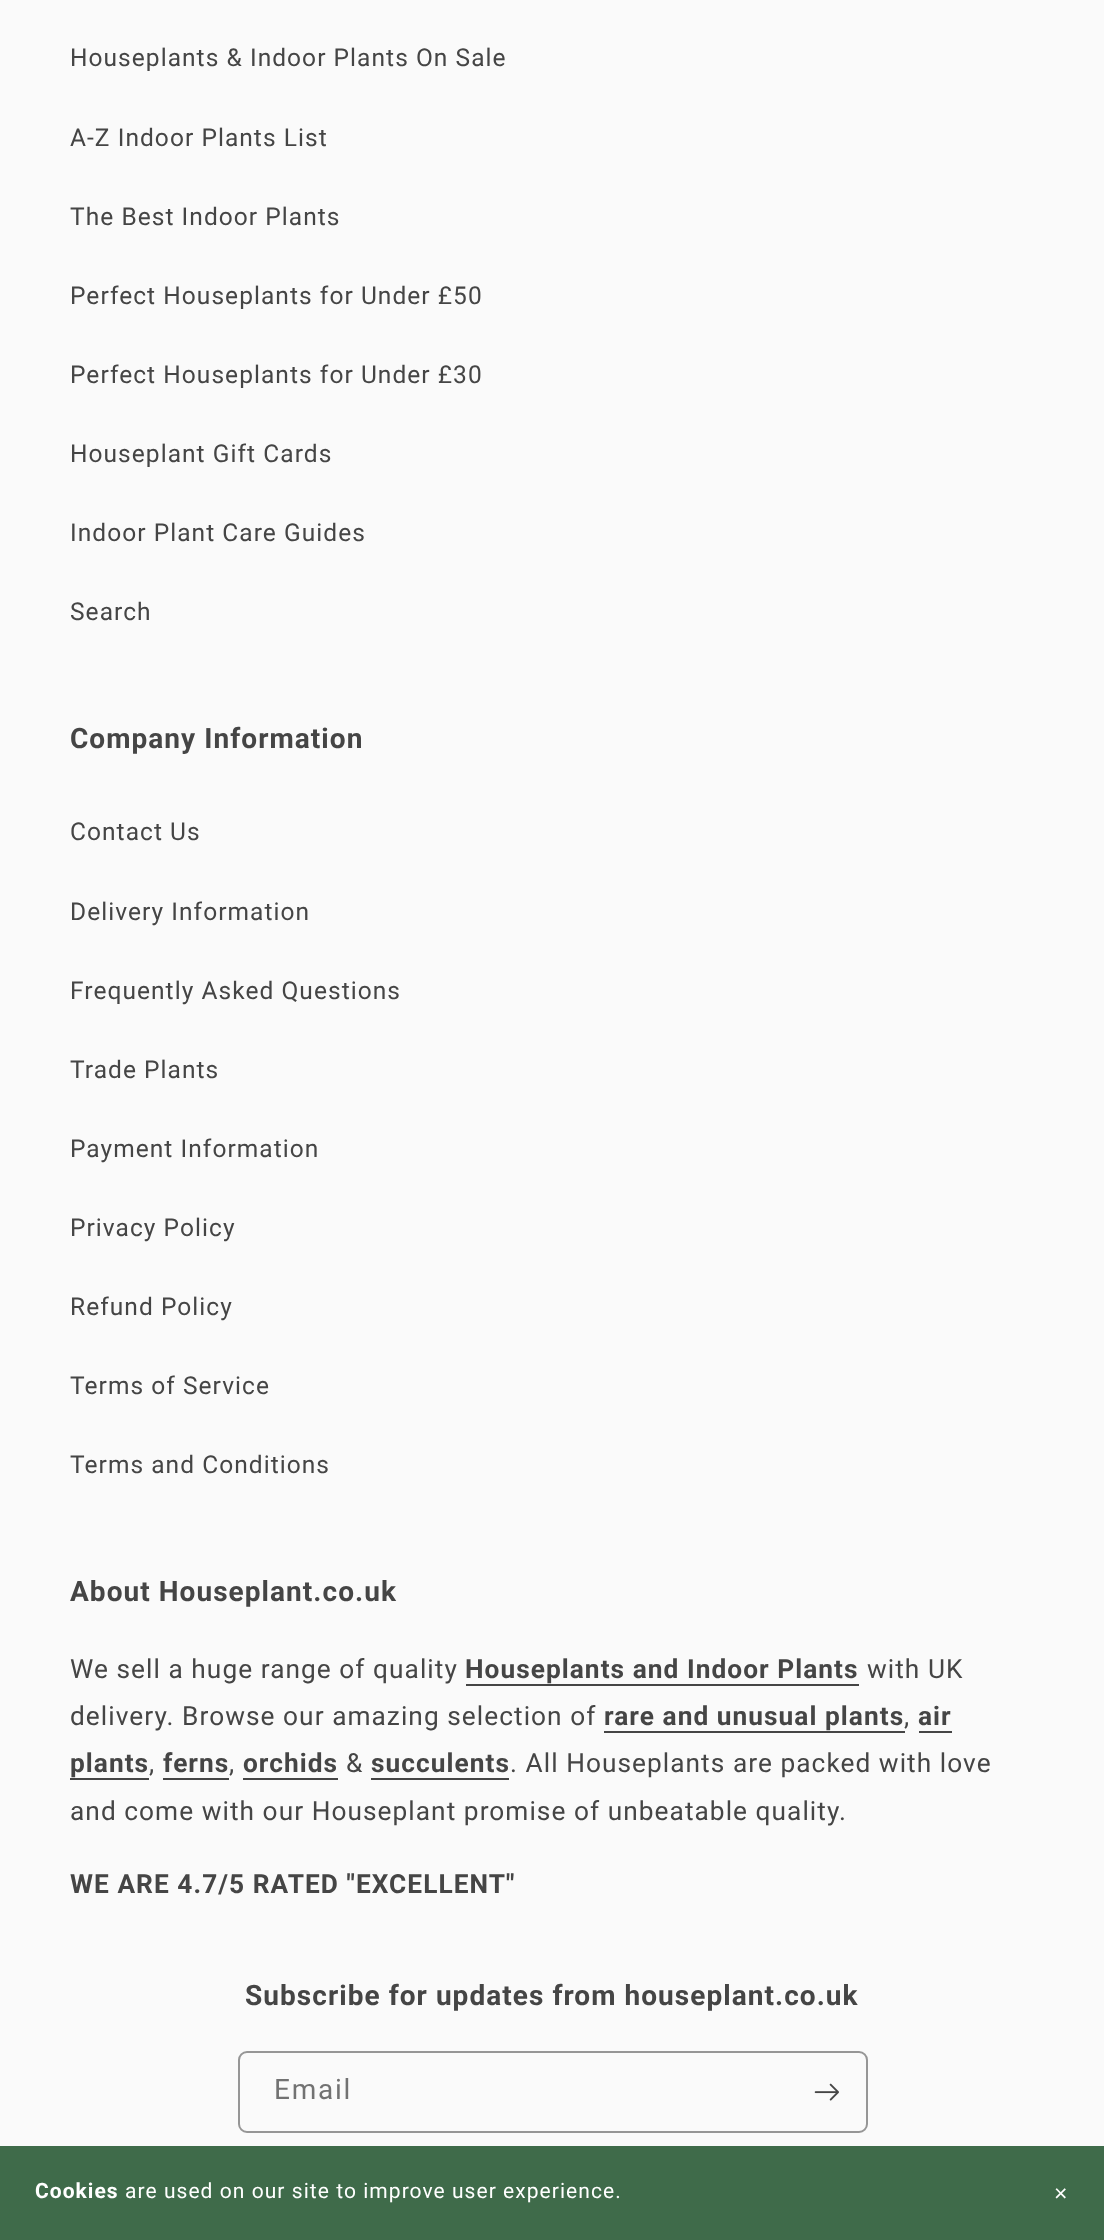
(async () => {
  const canvas = document.querySelector("canvas");
  canvas.width = 1104;
  canvas.height = 2240;
  const ctx = canvas.getContext("2d");
  ctx.miterLimit = 4;
  ctx.fontKerning = "normal";
  async function loadImage(src) {
    const img = new Image();
    img.src = src;
    await img.decode();
    return img;
  }

  ctx.fillStyle = "#fafafa";
  ctx.fillRect(0, 0, 1104, 2240);
  for (const [x, y, w, h, color] of [
    [466, 1684, 393, 2, "#454545"],
    [604, 1731, 301, 2, "#454545"],
    [919, 1731, 33, 2, "#454545"],
    [70, 1778, 79, 2, "#454545"],
    [163, 1778, 66, 2, "#454545"],
    [243, 1778, 95, 2, "#454545"],
    [371, 1778, 138, 2, "#454545"],
  ]) {
    ctx.fillStyle = color;
    ctx.fillRect(x, y, w, h);
  }
  ctx.beginPath();
  ctx.roundRect(239, 2052, 628, 80, 8);
  ctx.strokeStyle = "#969696";
  ctx.lineWidth = 2;
  ctx.stroke();
  ctx.drawImage(await loadImage("img/1.png"), 814, 2083, 25, 18);
  ctx.fillStyle = "#3f6b4a";
  ctx.fillRect(0, 2146, 1104, 94);
  ctx.letterSpacing = "1.05px";
  ctx.font = "24.5px Roboto";
  ctx.fillStyle = "#454545";
  for (const [text, x, y] of [
    ["Houseplants & Indoor Plants On Sale", 70, 66],
    ["A-Z Indoor Plants List", 70, 146],
    ["The Best Indoor Plants", 70, 225],
    ["Perfect Houseplants for Under £50", 70, 304],
    ["Perfect Houseplants for Under £30", 70, 383],
    ["Houseplant Gift Cards", 70, 462],
    ["Indoor Plant Care Guides", 70, 541],
    ["Search", 70, 620],
  ]) {
    ctx.fillText(text, x, y);
  }
  ctx.font = "bold 28px Roboto";
  ctx.fillText("Company Information", 70, 748);
  ctx.font = "24.5px Roboto";
  for (const [text, x, y] of [
    ["Contact Us", 70, 840],
    ["Delivery Information", 70, 920],
    ["Frequently Asked Questions", 70, 999],
    ["Trade Plants", 70, 1078],
    ["Payment Information", 70, 1157],
    ["Privacy Policy", 70, 1236],
    ["Refund Policy", 70, 1315],
    ["Terms of Service", 70, 1394],
    ["Terms and Conditions", 70, 1473],
  ]) {
    ctx.fillText(text, x, y);
  }
  ctx.font = "bold 28px Roboto";
  ctx.fillText("About Houseplant.co.uk", 70, 1601);
  ctx.font = "26.25px Roboto";
  ctx.fillText("We sell a huge range of quality", 70, 1678);
  ctx.font = "bold 26.25px Roboto";
  ctx.fillText("Houseplants and Indoor Plants", 465, 1678);
  ctx.font = "26.25px Roboto";
  ctx.fillText("with UK", 867, 1678);
  ctx.fillText("delivery. Browse our amazing selection of", 70, 1725);
  ctx.font = "bold 26.25px Roboto";
  ctx.fillText("rare and unusual plants", 604, 1725);
  ctx.font = "26.25px Roboto";
  ctx.fillText(",", 904, 1725);
  ctx.font = "bold 26.25px Roboto";
  ctx.fillText("air", 918, 1725);
  ctx.fillText("plants", 70, 1772);
  ctx.font = "26.25px Roboto";
  ctx.fillText(",", 149, 1772);
  ctx.font = "bold 26.25px Roboto";
  ctx.fillText("ferns", 163, 1772);
  ctx.font = "26.25px Roboto";
  ctx.fillText(",", 229, 1772);
  ctx.font = "bold 26.25px Roboto";
  ctx.fillText("orchids", 243, 1772);
  ctx.font = "26.25px Roboto";
  ctx.fillText("&", 346, 1772);
  ctx.font = "bold 26.25px Roboto";
  ctx.fillText("succulents", 371, 1772);
  ctx.font = "26.25px Roboto";
  ctx.fillText(". All Houseplants are packed with love", 510, 1772);
  ctx.fillText("and come with our Houseplant promise of unbeatable quality.", 70, 1820);
  ctx.font = "bold 26.25px Roboto";
  ctx.fillText("WE ARE 4.7/5 RATED \"EXCELLENT\"", 70, 1893);
  ctx.font = "bold 28px Roboto";
  ctx.fillText("Subscribe for updates from houseplant.co.uk", 245, 2005);
  ctx.letterSpacing = "1.75px";
  ctx.font = "28px Roboto";
  ctx.fillStyle = "#727272";
  ctx.fillText("Email", 274, 2099);
  ctx.letterSpacing = "1.05px";
  ctx.font = "bold 21px Roboto";
  ctx.fillStyle = "#ffffff";
  ctx.fillText("Cookies", 35, 2198);
  ctx.font = "21px Roboto";
  ctx.fillText("are used on our site to improve user experience.", 125, 2198);
  ctx.letterSpacing = "0px";
  ctx.font = "23px Liberation Sans";
  ctx.fillText("×", 1054, 2201);
})();
